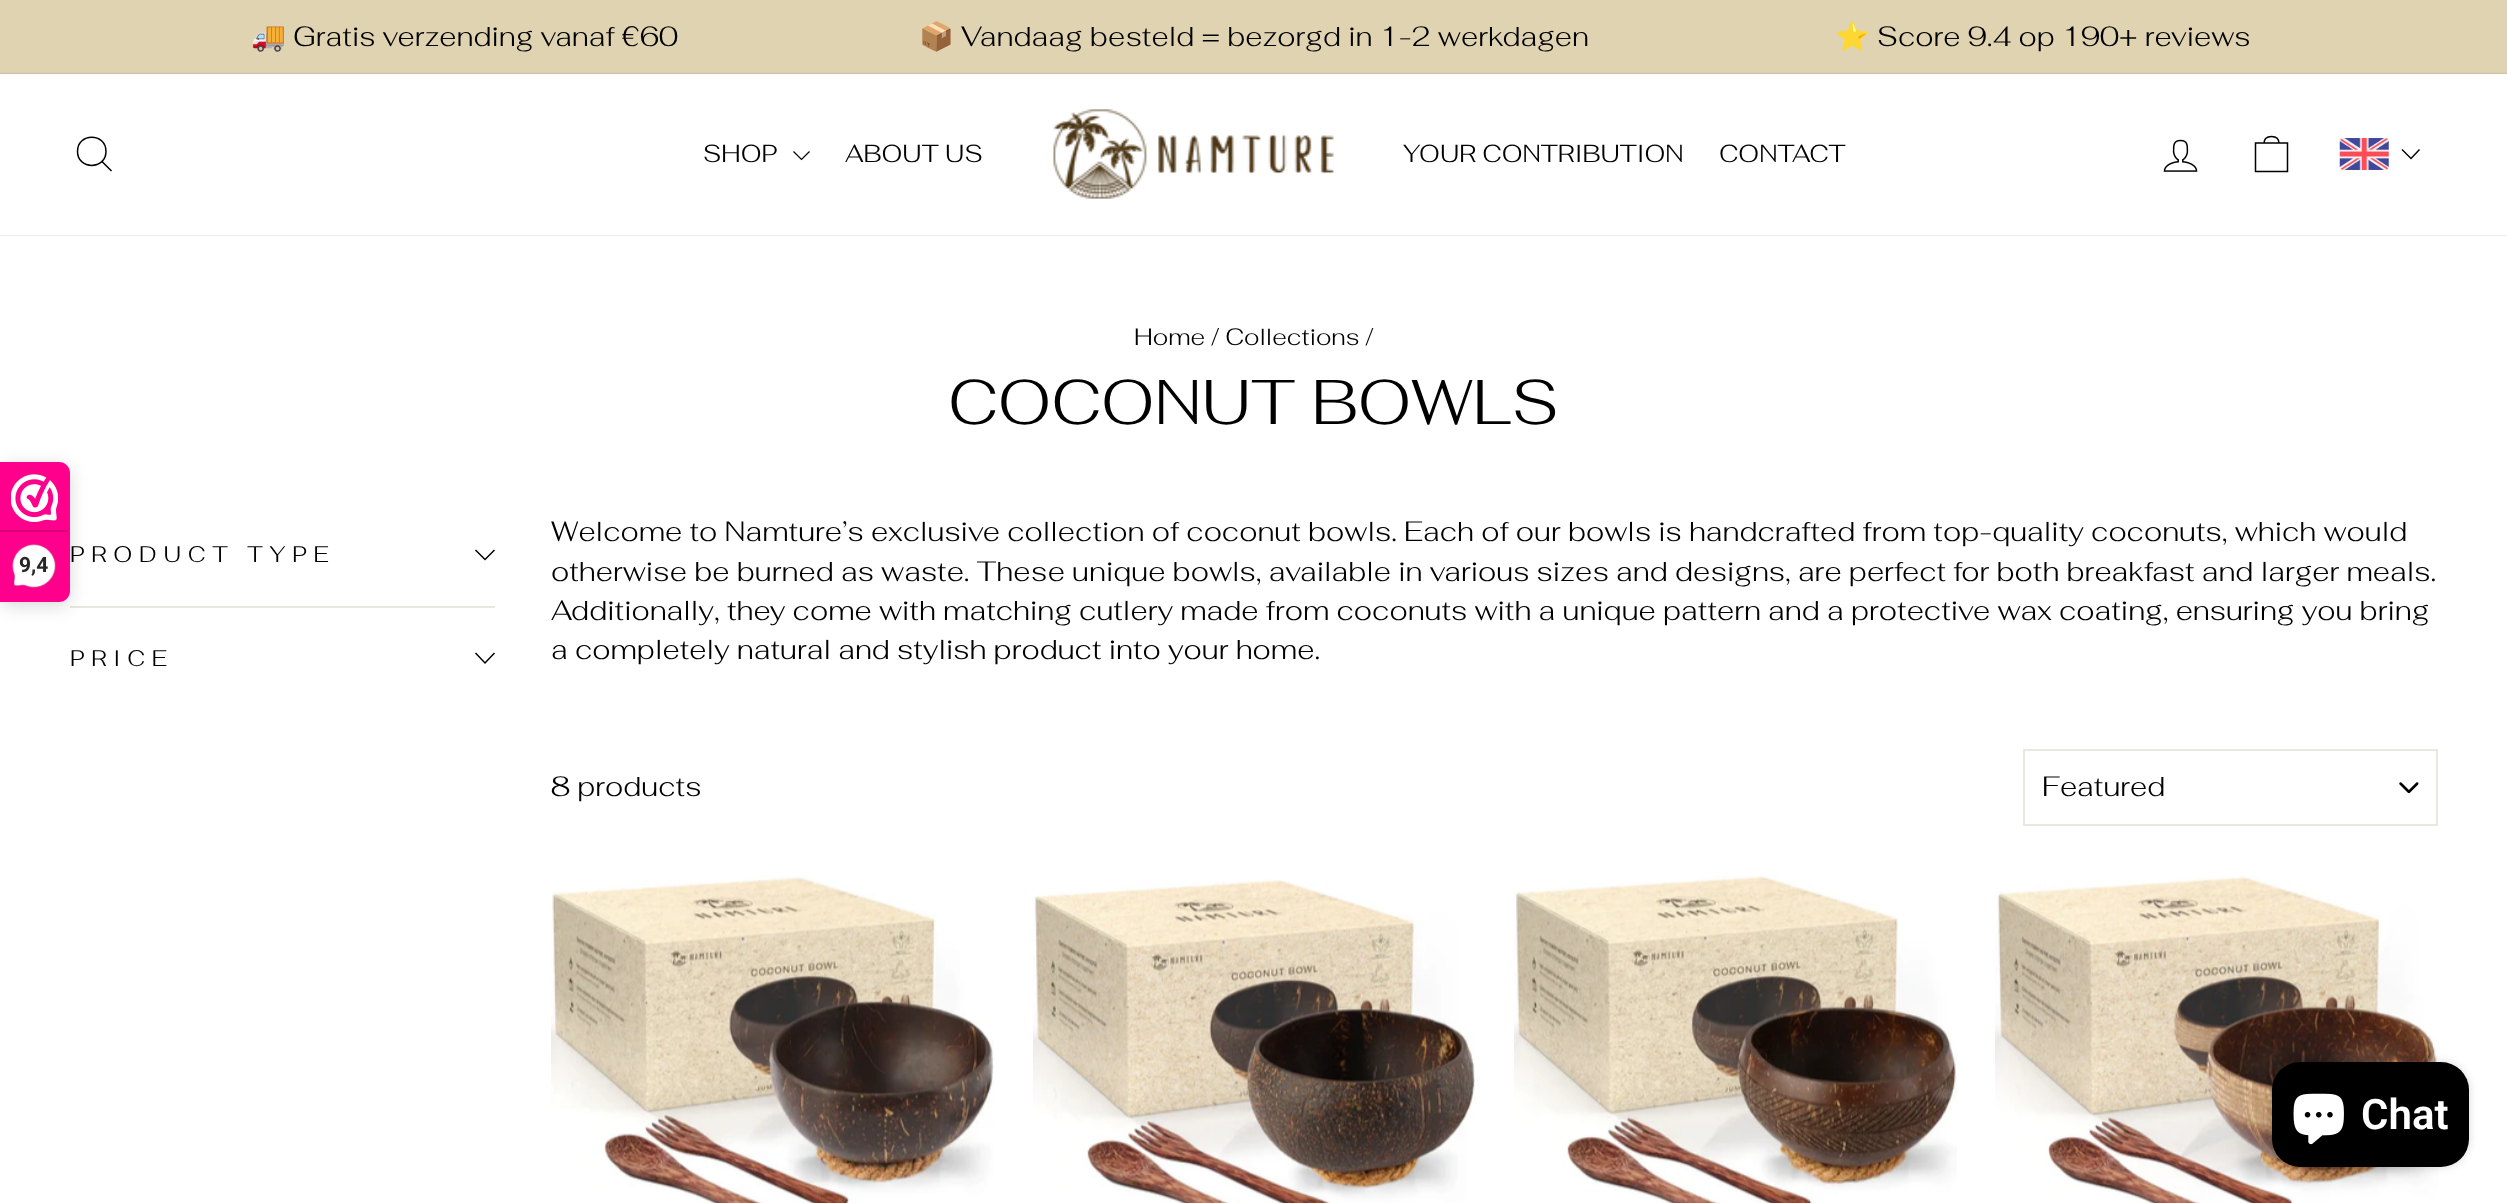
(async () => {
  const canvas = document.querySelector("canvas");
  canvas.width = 2507;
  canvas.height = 1203;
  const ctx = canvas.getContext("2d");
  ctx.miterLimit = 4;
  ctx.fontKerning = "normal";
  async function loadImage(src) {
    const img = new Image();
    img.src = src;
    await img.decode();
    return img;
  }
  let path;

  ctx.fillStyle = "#ffffff";
  ctx.fillRect(0, 0, 2507, 1203);
  ctx.fillStyle = "#e8e8e1";
  ctx.fillRect(70, 606, 425, 2);
  ctx.fillStyle = "rgba(0, 0, 0, 0.15)";
  ctx.filter = "blur(9px)";
  ctx.beginPath();
  ctx.roundRect(0, 466, 70, 140, 11);
  ctx.fill();
  ctx.filter = "none";
  ctx.fillStyle = "#fe008c";
  ctx.beginPath();
  ctx.roundRect(0, 462, 70, 140, [0, 11, 11, 0]);
  ctx.fill();
  ctx.drawImage(await loadImage("img/1.png"), 11, 474, 47, 48);
  ctx.fillStyle = "#d80077";
  ctx.fillRect(0, 530, 68, 2);
  ctx.drawImage(await loadImage("img/2.png"), 12, 544, 44, 44);
  ctx.fillStyle = "#e0d3b2";
  ctx.fillRect(0, 0, 2507, 74);
  ctx.fillStyle = "rgba(0, 0, 0, 0.2)";
  ctx.filter = "blur(1px)";
  ctx.beginPath();
  ctx.rect(0, 74, 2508, 161);
  ctx.fill();
  ctx.filter = "none";
  ctx.fillStyle = "#ffffff";
  ctx.fillRect(0, 74, 2507, 161);
  path = new Path2D("M106 151.5C106 170 77.5 170 77.5 151.5C77.5 132.5 106 132.5 106 151.5ZM111.5 171L102 161.5");
  ctx.strokeStyle = "#000000";
  ctx.lineWidth = 1.5;
  ctx.stroke(path);
  path = new Path2D("M793.5 151.5L801.5 159.5L809.5 151.5");
  ctx.lineWidth = 1.2;
  ctx.stroke(path);
  ctx.drawImage(await loadImage("img/3.png"), 1053, 109, 281, 90);
  ctx.drawImage(await loadImage("img/4.png"), 2163, 139, 35, 33);
  path = new Path2D("M2255.5 143H2287.5V171.5H2255.5ZM2264 143.5C2264 138 2267.5 136.5 2271.5 136.5C2275.5 136.5 2279 138 2279 143.5");
  ctx.lineWidth = 1.5;
  ctx.stroke(path);
  ctx.drawImage(await loadImage("img/5.png"), 2339, 138, 50, 32);
  path = new Path2D("M2402 149.5L2411 158.5L2419.5 149.5");
  ctx.lineWidth = 1.4;
  ctx.stroke(path);
  path = new Path2D("M475.5 550L485 559.5L494.5 550");
  ctx.lineWidth = 1.5;
  ctx.stroke(path);
  path = new Path2D("M475.5 653L485 663L494.5 653");
  ctx.stroke(path);
  ctx.drawImage(await loadImage("img/6.png"), 2399, 782, 20, 11);
  ctx.strokeStyle = "#e8e8e1";
  ctx.lineWidth = 2;
  ctx.strokeRect(2024, 750, 413, 75);
  ctx.drawImage(await loadImage("img/7.png"), 551, 875, 443, 328);
  ctx.drawImage(await loadImage("img/8.png"), 1033, 879, 442, 324);
  ctx.drawImage(await loadImage("img/9.png"), 1514, 875, 443, 328);
  ctx.drawImage(await loadImage("img/10.png"), 1995, 876, 443, 327);
  ctx.fillStyle = "rgba(0, 0, 0, 0.15)";
  ctx.filter = "blur(4.5px)";
  ctx.beginPath();
  ctx.roundRect(2272, 1062, 197, 105, 28);
  ctx.fill();
  ctx.filter = "none";
  ctx.fillStyle = "#000000";
  ctx.beginPath();
  ctx.roundRect(2272, 1062, 197, 105, 28);
  ctx.fill();
  ctx.drawImage(await loadImage("img/11.png"), 2293, 1093, 51, 52);
  ctx.font = "bold 21px Roboto";
  ctx.fillStyle = "#272626";
  ctx.fillText("9,4", 19, 572);
  ctx.font = "28px Noto Color Emoji";
  ctx.fillStyle = "#000000";
  ctx.fillText("🚚", 251, 46);
  ctx.font = "300 28px Fahkwang";
  ctx.fillText("Gratis verzending vanaf €60", 293, 46);
  ctx.font = "28px Noto Color Emoji";
  ctx.fillText("📦", 919, 46);
  ctx.font = "300 28px Fahkwang";
  ctx.fillText("Vandaag besteld = bezorgd in 1-2 werkdagen", 961, 46);
  ctx.font = "28px Noto Color Emoji";
  ctx.fillText("⭐", 1835, 46);
  ctx.font = "300 28px Fahkwang";
  ctx.fillText("Score 9.4 op 190+ reviews", 1877, 46);
  ctx.font = "300 24.5px Fahkwang";
  for (const [text, x, y] of [
    ["SHOP", 703, 162],
    ["ABOUT US", 845, 162],
    ["YOUR CONTRIBUTION", 1403, 162],
    ["CONTACT", 1719, 162],
  ]) {
    ctx.fillText(text, x, y);
  }
  ctx.font = "300 23.75px Fahkwang";
  ctx.fillText("Home / Collections /", 1134, 345);
  ctx.font = "300 63px Fahkwang";
  ctx.fillText("COCONUT BOWLS", 948, 424);
  ctx.letterSpacing = "6.75px";
  ctx.font = "300 22.4px Fahkwang";
  ctx.fillText("PRODUCT TYPE", 70, 562);
  ctx.fillText("PRICE", 70, 666);
  ctx.letterSpacing = "0px";
  ctx.font = "300 28px Fahkwang";
  for (const [text, x, y] of [
    ["Welcome to Namture’s exclusive collection of coconut bowls. Each of our bowls is handcrafted from top-quality coconuts, which would", 551, 541],
    ["otherwise be burned as waste. These unique bowls, available in various sizes and designs, are perfect for both breakfast and larger meals.", 551, 581],
    ["Additionally, they come with matching cutlery made from coconuts with a unique pattern and a protective wax coating, ensuring you bring", 551, 620],
    ["a completely natural and stylish product into your home.", 551, 659],
    ["8 products", 551, 796],
    ["Featured", 2042, 796],
  ]) {
    ctx.fillText(text, x, y);
  }
  ctx.font = "600 42px Roboto";
  ctx.fillStyle = "#ffffff";
  ctx.fillText("Chat", 2361, 1129);
})();
